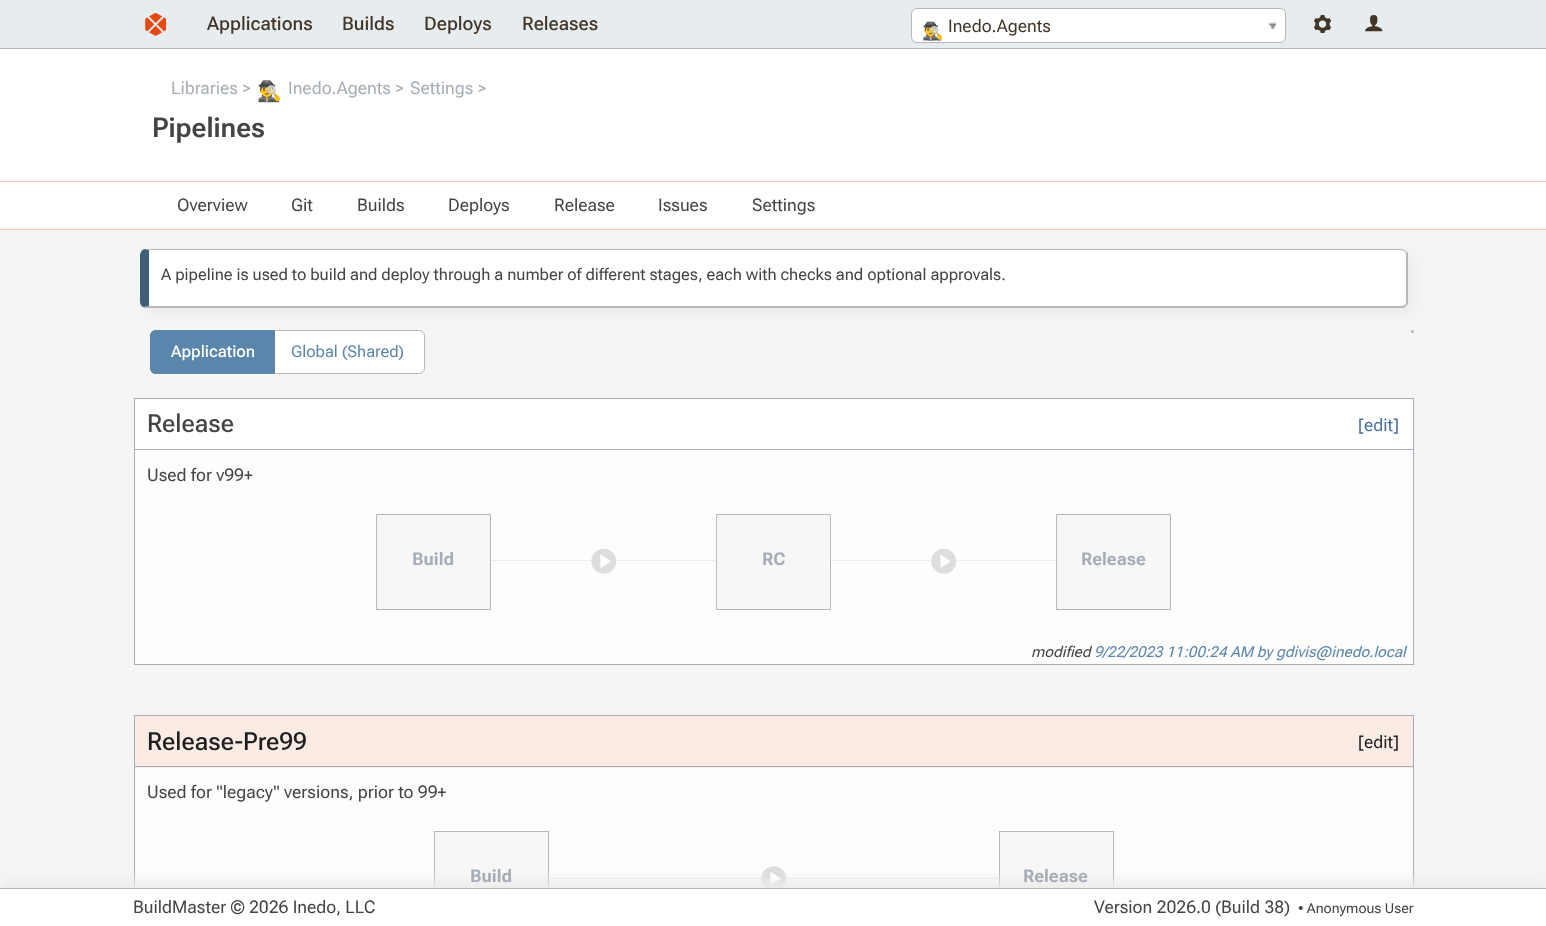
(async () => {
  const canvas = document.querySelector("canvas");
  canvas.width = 1546;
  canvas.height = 926;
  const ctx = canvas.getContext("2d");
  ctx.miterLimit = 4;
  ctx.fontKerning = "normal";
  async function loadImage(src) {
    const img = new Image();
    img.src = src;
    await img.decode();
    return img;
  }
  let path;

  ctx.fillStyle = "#f5f5f5";
  ctx.fillRect(0, 0, 1546, 926);
  ctx.fillStyle = "#e7edef";
  ctx.fillRect(0, 0, 1546, 48);
  ctx.fillStyle = "#ebebeb";
  ctx.filter = "blur(6px)";
  ctx.beginPath();
  ctx.rect(0, 54, 1546, 135);
  ctx.fill();
  ctx.filter = "none";
  ctx.drawImage(await loadImage("img/1.png"), 145, 12, 22, 24);
  ctx.fillStyle = "#ffffff";
  ctx.beginPath();
  ctx.roundRect(911.5, 8.5, 374, 34, 5.5);
  ctx.fill();
  ctx.strokeStyle = "#b8b8b8";
  ctx.stroke();
  ctx.beginPath();
  ctx.roundRect(913, 9, 372, 32, 6);
  ctx.fill();
  ctx.drawImage(await loadImage("img/2.png"), 1268, 22, 9, 8);
  ctx.drawImage(await loadImage("img/3.png"), 1314, 15, 17, 18);
  ctx.drawImage(await loadImage("img/4.png"), 1365, 15, 18, 17);
  for (const [x, y, w, h, color] of [
    [0, 49, 1546, 180, "#ffffff"],
    [0, 48, 1546, 1, "#b8b8b8"],
    [0, 181, 1546, 1, "#fac7b5"],
    [0, 229, 1546, 1, "#fac7b5"],
  ]) {
    ctx.fillStyle = color;
    ctx.fillRect(x, y, w, h);
  }
  ctx.fillStyle = "#ebebeb";
  ctx.filter = "blur(6px)";
  ctx.beginPath();
  ctx.roundRect(146, 255, 1268, 59, 6);
  ctx.fill();
  ctx.filter = "none";
  ctx.fillStyle = "#ffffff";
  path = new Path2D("M149 250H1401C1404 250 1406 252 1406 255V301C1406 304 1404 306 1401 306H149Z");
  ctx.fill(path);
  ctx.fillStyle = "#b8b8b8";
  path = new Path2D("M146 249H144L149 250H1401C1403 250 1404 251 1405 252L1406 251C1404 250 1403 249 1401 249Z");
  ctx.fill(path);
  path = new Path2D("M1406 251L1408 253V304L1406 306L1405 305C1406 304 1406 302 1406 301V255C1406 254 1406 252 1405 252Z");
  ctx.fill(path);
  path = new Path2D("M144 308L143 307L150 306H1401C1402 306 1404 306 1405 305L1406 306L1404 308Z");
  ctx.fill(path);
  ctx.fillStyle = "#3e5e79";
  path = new Path2D("M140 255V301C140 304 141 306 143 307L150 306H149V250L144 249C142 250 140 253 140 255Z");
  ctx.fill(path);
  ctx.fillStyle = "#b8b8b8";
  ctx.beginPath();
  ctx.arc(1412.5, 331.5, 1.5, 0, Math.PI * 2);
  ctx.fill();
  ctx.fillStyle = "#ffffff";
  ctx.beginPath();
  ctx.roundRect(270.5, 330.5, 154, 43, [0, 5.5, 5.5, 0]);
  ctx.fill();
  ctx.stroke();
  ctx.fillStyle = "#5b85aa";
  ctx.beginPath();
  ctx.roundRect(150, 330, 125, 44, [6, 0, 0, 6]);
  ctx.fill();
  path = new Path2D("M156 330H275V374H156C153 374 150 371 150 368V336C150 333 153 330 156 330ZM156 331H275V372H156C153 372 151 370 151 368V336C151 333 153 331 156 331Z");
  ctx.fill(path, "evenodd");
  ctx.fillStyle = "#fdfdfd";
  ctx.fillRect(135, 450, 1278, 214);
  ctx.strokeStyle = "#a6adb6";
  ctx.strokeRect(134.5, 398.5, 1279, 266);
  ctx.fillStyle = "#ffffff";
  ctx.fillRect(135, 399, 1278, 50);
  ctx.fillStyle = "#a6adb6";
  ctx.fillRect(135, 449, 1278, 1);
  ctx.fillStyle = "#f7f7f7";
  ctx.beginPath();
  ctx.rect(376.5, 514.5, 114, 95);
  ctx.fill();
  ctx.strokeStyle = "#b8b8b8";
  ctx.stroke();
  ctx.fillStyle = "#e8edef";
  ctx.fillRect(491, 560, 225, 1);
  ctx.drawImage(await loadImage("img/5.png"), 591, 549, 25, 25);
  ctx.fillStyle = "#f7f7f7";
  ctx.beginPath();
  ctx.rect(716.5, 514.5, 114, 95);
  ctx.fill();
  ctx.stroke();
  ctx.fillStyle = "#e8edef";
  ctx.fillRect(831, 560, 225, 1);
  ctx.drawImage(await loadImage("img/5.png"), 931, 549, 25, 25);
  ctx.fillStyle = "#f7f7f7";
  ctx.beginPath();
  ctx.rect(1056.5, 514.5, 114, 95);
  ctx.fill();
  ctx.stroke();
  ctx.fillStyle = "#fdfdfd";
  ctx.fillRect(135, 768, 1278, 120);
  ctx.strokeStyle = "#a6adb6";
  ctx.strokeRect(134.5, 715.5, 1279, 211);
  for (const [x, y, w, h, color] of [
    [135, 716, 1278, 52, "#faece5"],
    [135, 766, 1278, 1, "#a6adb6"],
    [435, 832, 113, 56, "#f7f7f7"],
  ]) {
    ctx.fillStyle = color;
    ctx.fillRect(x, y, w, h);
  }
  ctx.strokeStyle = "#b8b8b8";
  ctx.strokeRect(434.5, 831.5, 114, 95);
  ctx.fillStyle = "#e8edef";
  ctx.fillRect(549, 878, 450, 1);
  ctx.drawImage(await loadImage("img/6.png"), 761, 866, 25, 22);
  ctx.fillStyle = "#f7f7f7";
  ctx.fillRect(1000, 832, 113, 56);
  ctx.strokeRect(999.5, 831.5, 114, 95);
  ctx.fillStyle = "#ebebeb";
  ctx.filter = "blur(6px)";
  ctx.beginPath();
  ctx.rect(0, 881, 1546, 39);
  ctx.fill();
  ctx.filter = "none";
  ctx.fillStyle = "#ffffff";
  ctx.fillRect(0, 889, 1546, 37);
  ctx.fillStyle = "#b8b8b8";
  ctx.fillRect(0, 888, 1546, 1);
  ctx.font = "500 18.75px Roboto Flex";
  ctx.fillStyle = "#423629";
  for (const [text, x, y] of [
    ["Applications", 207, 30],
    ["Builds", 342, 30],
    ["Deploys", 424, 30],
    ["Releases", 522, 30],
  ]) {
    ctx.fillText(text, x, y);
  }
  ctx.save();
  ctx.beginPath();
  ctx.rect(923, 9, 330, 32);
  ctx.clip();
  ctx.font = "17.5px Noto Color Emoji";
  ctx.fillText("🕵️‍♂️", 922, 37);
  ctx.restore();
  ctx.font = "17.5px Roboto Flex";
  ctx.fillText("Inedo.Agents", 948, 32);
  ctx.fillStyle = "#a6adb6";
  ctx.fillText("Libraries >", 171, 94);
  ctx.font = "20px Noto Color Emoji";
  ctx.fillText("🕵️‍♂️", 257, 98);
  ctx.font = "17.5px Roboto Flex";
  ctx.fillText("Inedo.Agents >", 288, 94);
  ctx.fillText("Settings >", 410, 94);
  ctx.font = "600 27.5px Roboto Flex";
  ctx.fillStyle = "#444444";
  ctx.fillText("Pipelines", 152, 137);
  ctx.font = "17.5px Roboto Flex";
  for (const [text, x, y] of [
    ["Overview", 177, 211],
    ["Git", 291, 211],
    ["Builds", 357, 211],
    ["Deploys", 448, 211],
    ["Release", 554, 211],
    ["Issues", 658, 211],
    ["Settings", 752, 211],
  ]) {
    ctx.fillText(text, x, y);
  }
  ctx.font = "16.25px 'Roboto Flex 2'";
  ctx.fillText("A pipeline is used to build and deploy through a number of different stages, each with checks and optional approvals.", 161, 280);
  ctx.font = "500 16.25px 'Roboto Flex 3'";
  ctx.fillStyle = "#ffffff";
  ctx.fillText("Application", 171, 357);
  ctx.font = "16.25px 'Roboto Flex 2'";
  ctx.fillStyle = "#5b85aa";
  ctx.fillText("Global (Shared)", 291, 357);
  ctx.font = "500 25px 'Roboto Flex 2'";
  ctx.fillStyle = "#444444";
  ctx.fillText("Release", 147, 432);
  ctx.font = "17.5px Roboto Flex";
  ctx.fillStyle = "#48729d";
  ctx.fillText("[edit]", 1358, 431);
  ctx.fillStyle = "#444444";
  ctx.fillText("Used for v99+", 147, 481);
  ctx.font = "bold 17.5px Roboto Flex";
  ctx.fillStyle = "#a6adb6";
  for (const [text, x, y] of [
    ["Build", 412, 565],
    ["RC", 762, 565],
    ["Release", 1081, 565],
  ]) {
    ctx.fillText(text, x, y);
  }
  ctx.font = "italic 15px Roboto Flex";
  ctx.fillStyle = "#444444";
  ctx.fillText("modified", 1031, 657);
  ctx.fillStyle = "#5b85aa";
  ctx.fillText("9/22/2023 11:00:24 AM by gdivis@inedo.local", 1094, 657);
  ctx.font = "500 25px 'Roboto Flex 2'";
  ctx.fillStyle = "#1e1e1e";
  ctx.fillText("Release-Pre99", 147, 750);
  ctx.font = "17.5px Roboto Flex";
  ctx.fillText("[edit]", 1358, 748);
  ctx.fillStyle = "#444444";
  ctx.fillText("Used for \"legacy\" versions, prior to 99+", 147, 798);
  ctx.font = "bold 17.5px Roboto Flex";
  ctx.fillStyle = "#a6adb6";
  ctx.fillText("Build", 470, 882);
  ctx.fillText("Release", 1023, 882);
  ctx.font = "17.5px Roboto Flex";
  ctx.fillStyle = "#444444";
  ctx.fillText("BuildMaster © 2026 Inedo, LLC", 133, 913);
  ctx.fillText("Version 2026.0 (Build 38)", 1094, 913);
  ctx.font = "13.75px 'Roboto Flex 3'";
  ctx.fillText("• Anonymous User", 1298, 913);
})();
